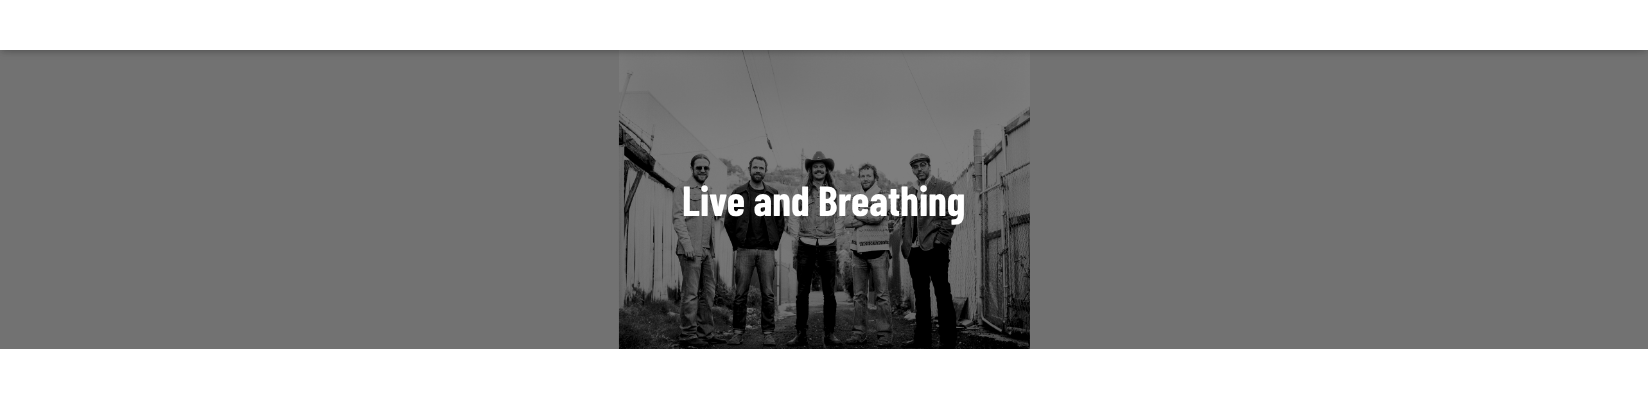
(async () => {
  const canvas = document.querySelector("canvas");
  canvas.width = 1648;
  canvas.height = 405;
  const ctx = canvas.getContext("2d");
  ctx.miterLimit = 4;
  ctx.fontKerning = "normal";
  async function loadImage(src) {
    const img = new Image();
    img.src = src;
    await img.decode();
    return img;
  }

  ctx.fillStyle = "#e5e5e5";
  ctx.fillRect(0, 0, 1648, 405);
  ctx.drawImage(await loadImage("img/1.png"), 618, 50, 412, 299);
  ctx.fillStyle = "rgba(0, 0, 0, 0.5)";
  ctx.fillRect(0, 50, 1648, 299);
  ctx.fillStyle = "rgba(0, 0, 0, 0.1)";
  ctx.filter = "blur(2.5px)";
  ctx.beginPath();
  ctx.rect(2, 6, 1644, 46);
  ctx.fill();
  ctx.filter = "none";
  ctx.fillStyle = "rgba(0, 0, 0, 0.12)";
  ctx.filter = "blur(5px)";
  ctx.beginPath();
  ctx.rect(0, 1, 1648, 50);
  ctx.fill();
  ctx.filter = "none";
  ctx.fillStyle = "rgba(0, 0, 0, 0.42)";
  ctx.filter = "blur(5px)";
  ctx.beginPath();
  ctx.rect(6, 7, 1636, 38);
  ctx.fill();
  ctx.filter = "none";
  ctx.fillStyle = "#ffffff";
  ctx.fillRect(0, 0, 1648, 50);
  ctx.fillRect(0, 349, 1648, 56);
  ctx.font = "bold 42px Barlow Condensed";
  ctx.fillText("Live and Breathing", 682, 216);
})();
